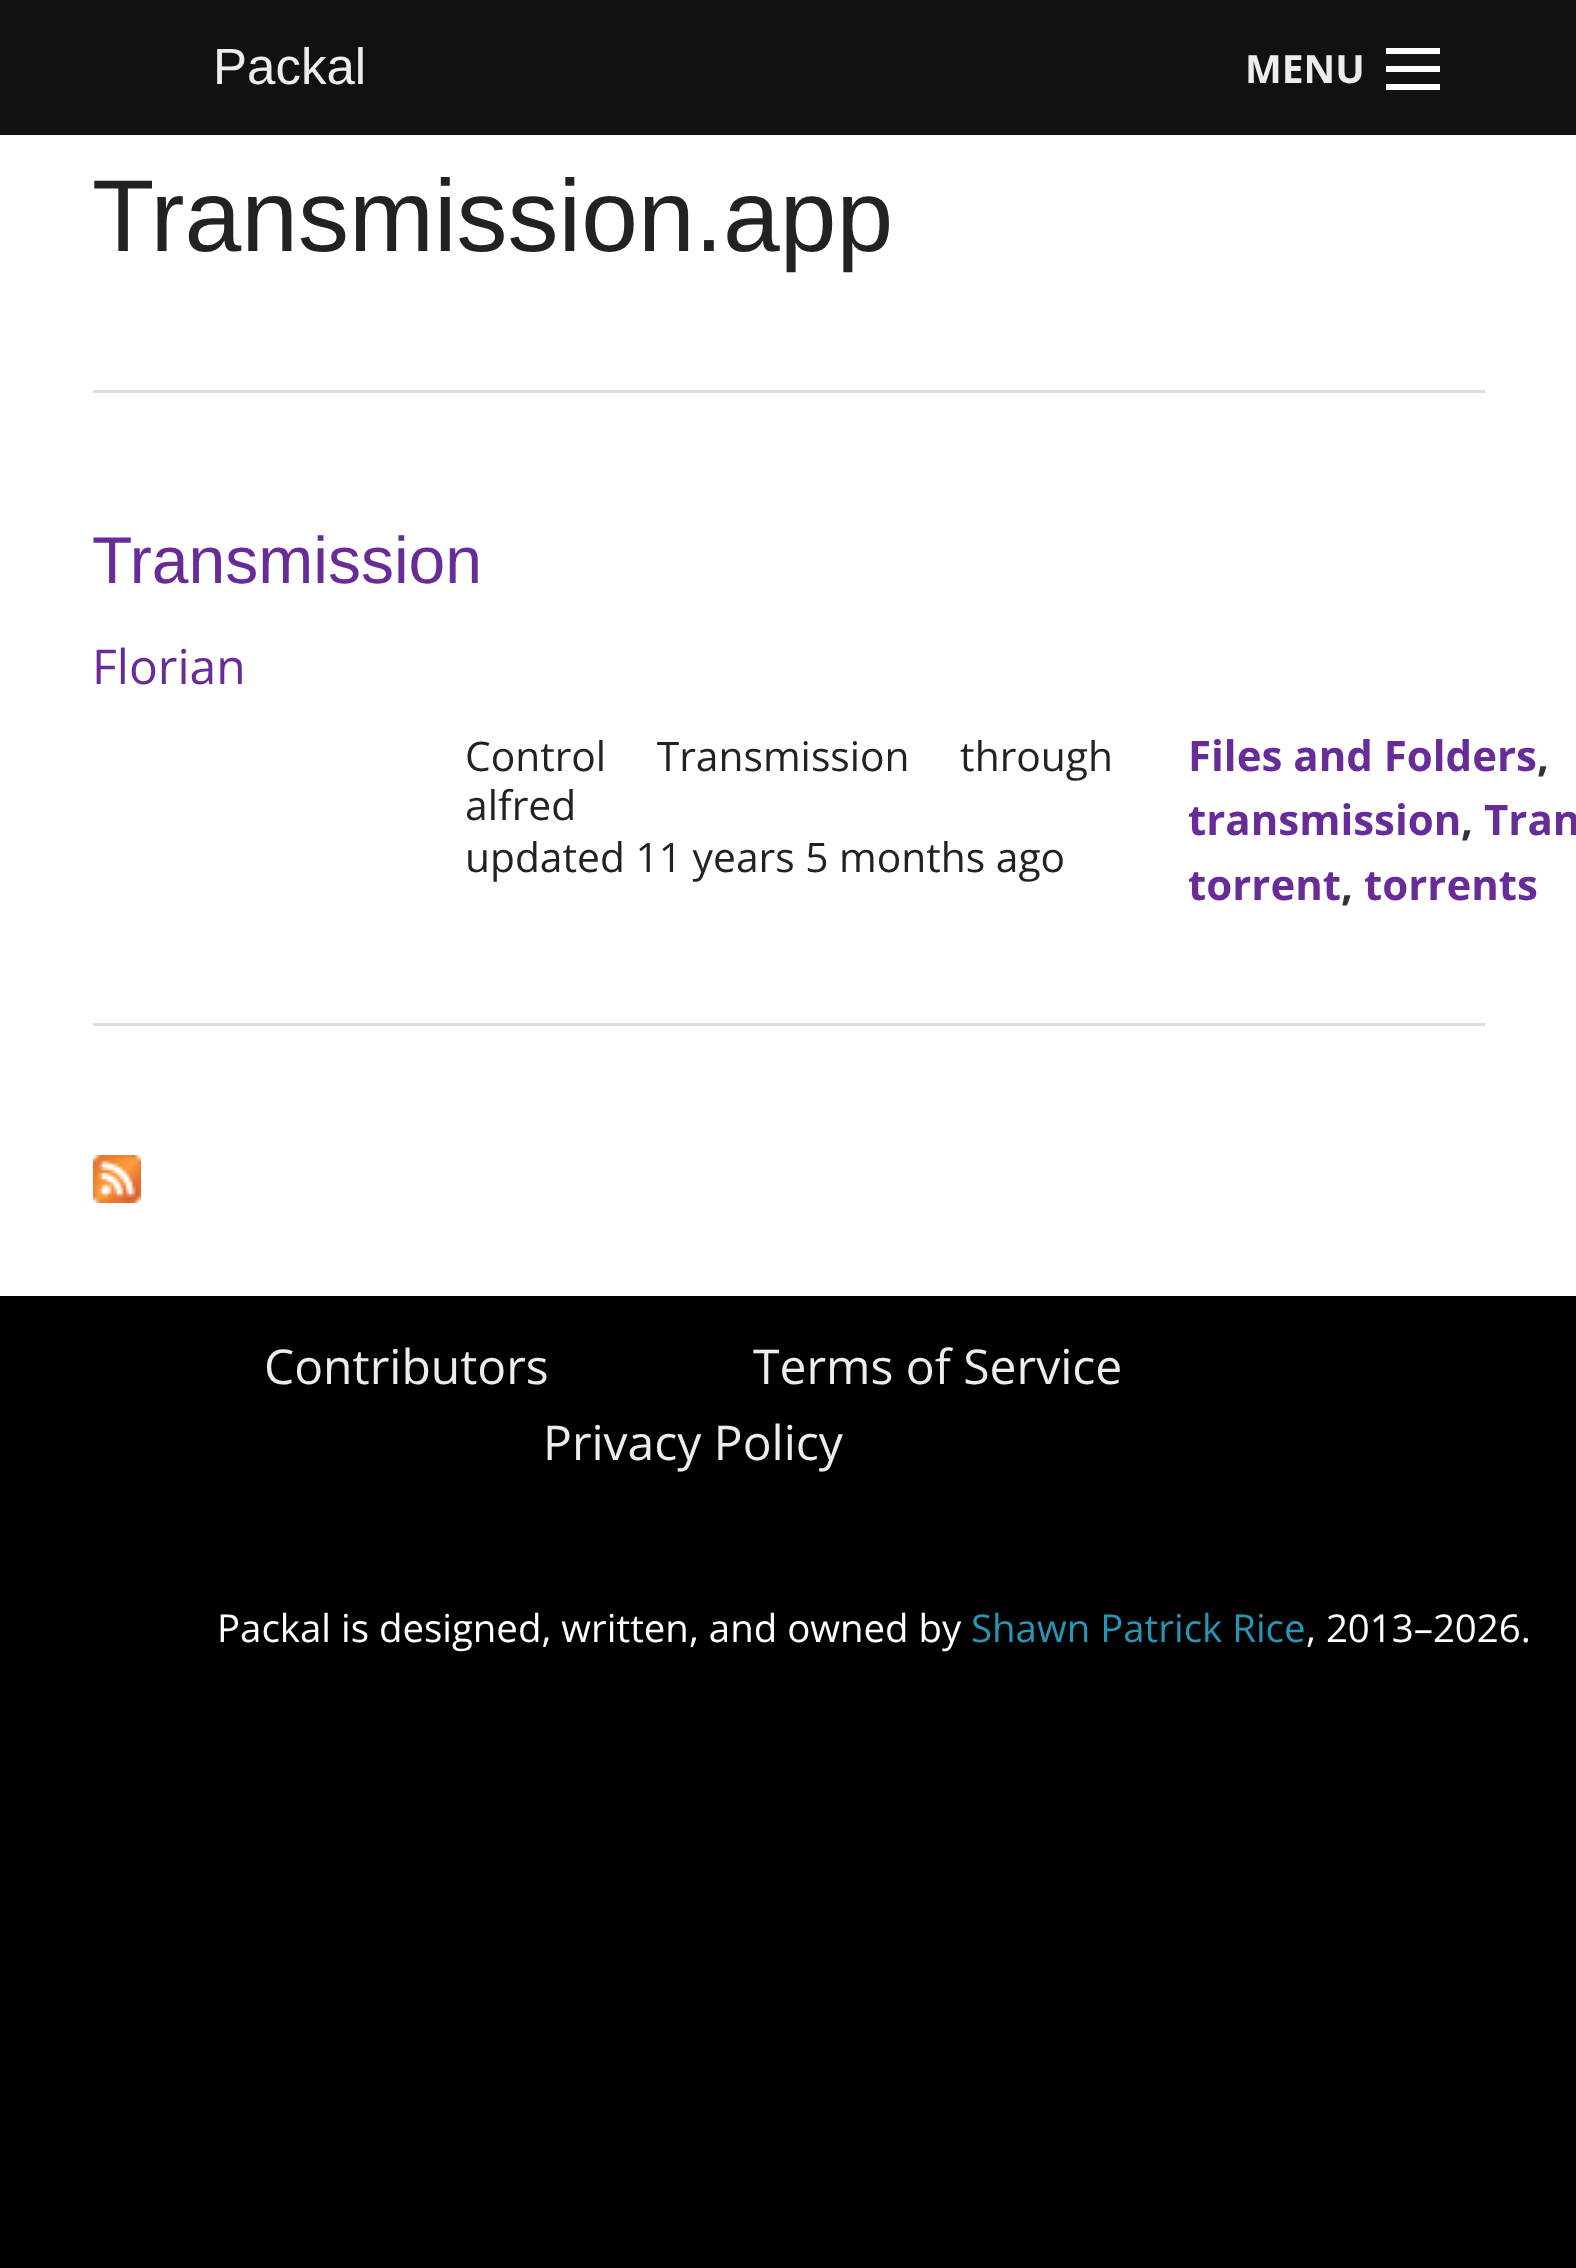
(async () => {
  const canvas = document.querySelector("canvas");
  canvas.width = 1576;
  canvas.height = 2268;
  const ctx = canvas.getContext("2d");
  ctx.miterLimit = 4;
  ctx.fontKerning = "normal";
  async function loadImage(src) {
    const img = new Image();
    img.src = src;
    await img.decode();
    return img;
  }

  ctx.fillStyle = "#000000";
  ctx.fillRect(0, 0, 1576, 2268);
  for (const [x, y, w, h, color] of [
    [0, 135, 1576, 1161, "#ffffff"],
    [0, 0, 1576, 135, "#111111"],
    [1386, 84, 54, 6, "#ffffff"],
    [1386, 66, 54, 6, "#ffffff"],
    [1386, 48, 54, 6, "#ffffff"],
    [93, 390, 1392, 3, "#dddddd"],
    [93, 1023, 1392, 3, "#dddddd"],
  ]) {
    ctx.fillStyle = color;
    ctx.fillRect(x, y, w, h);
  }
  ctx.drawImage(await loadImage("img/1.png"), 93, 1155, 48, 48);
  ctx.font = "51px Liberation Sans";
  ctx.fillStyle = "#ededed";
  ctx.fillText("Packal", 213, 84);
  ctx.font = "bold 39px Open Sans";
  ctx.fillText("MENU", 1245, 83);
  ctx.font = "102px Liberation Sans";
  ctx.fillStyle = "#222222";
  ctx.fillText("Transmission.app", 92, 251);
  ctx.font = "66px Liberation Sans";
  ctx.fillStyle = "#672c98";
  ctx.fillText("Transmission", 92, 583);
  ctx.font = "48px Open Sans";
  ctx.fillText("Florian", 92, 684);
  ctx.wordSpacing = "40px";
  ctx.font = "40.75px Open Sans";
  ctx.fillStyle = "#222222";
  ctx.fillText("Control Transmission through", 465, 771);
  ctx.wordSpacing = "0px";
  ctx.fillText("alfred", 465, 820);
  ctx.fillText("updated 11 years 5 months ago", 465, 872);
  ctx.font = "bold 42px Open Sans";
  ctx.fillStyle = "#672c98";
  ctx.fillText("Files and Folders", 1188, 771);
  ctx.fillStyle = "#333333";
  ctx.fillText(",", 1537, 771);
  ctx.fillStyle = "#672c98";
  ctx.fillText("transmission", 1188, 835);
  ctx.fillStyle = "#333333";
  ctx.fillText(",", 1461, 835);
  ctx.fillStyle = "#672c98";
  ctx.fillText("Tran", 1484, 835);
  ctx.fillText("torrent", 1188, 900);
  ctx.fillStyle = "#333333";
  ctx.fillText(",", 1341, 900);
  ctx.fillStyle = "#672c98";
  ctx.fillText("torrents", 1364, 900);
  ctx.font = "48px Open Sans";
  ctx.fillStyle = "#ededed";
  for (const [text, x, y] of [
    ["Contributors", 264, 1384],
    ["Terms of Service", 753, 1384],
    ["Privacy Policy", 543, 1460],
  ]) {
    ctx.fillText(text, x, y);
  }
  ctx.font = "38.4px Open Sans";
  ctx.fillStyle = "#ffffff";
  ctx.fillText("Packal is designed, written, and owned by", 217, 1642);
  ctx.fillStyle = "#2795b6";
  ctx.fillText("Shawn Patrick Rice", 971, 1642);
  ctx.fillStyle = "#ffffff";
  ctx.fillText(", 2013–2026.", 1306, 1642);
})();
